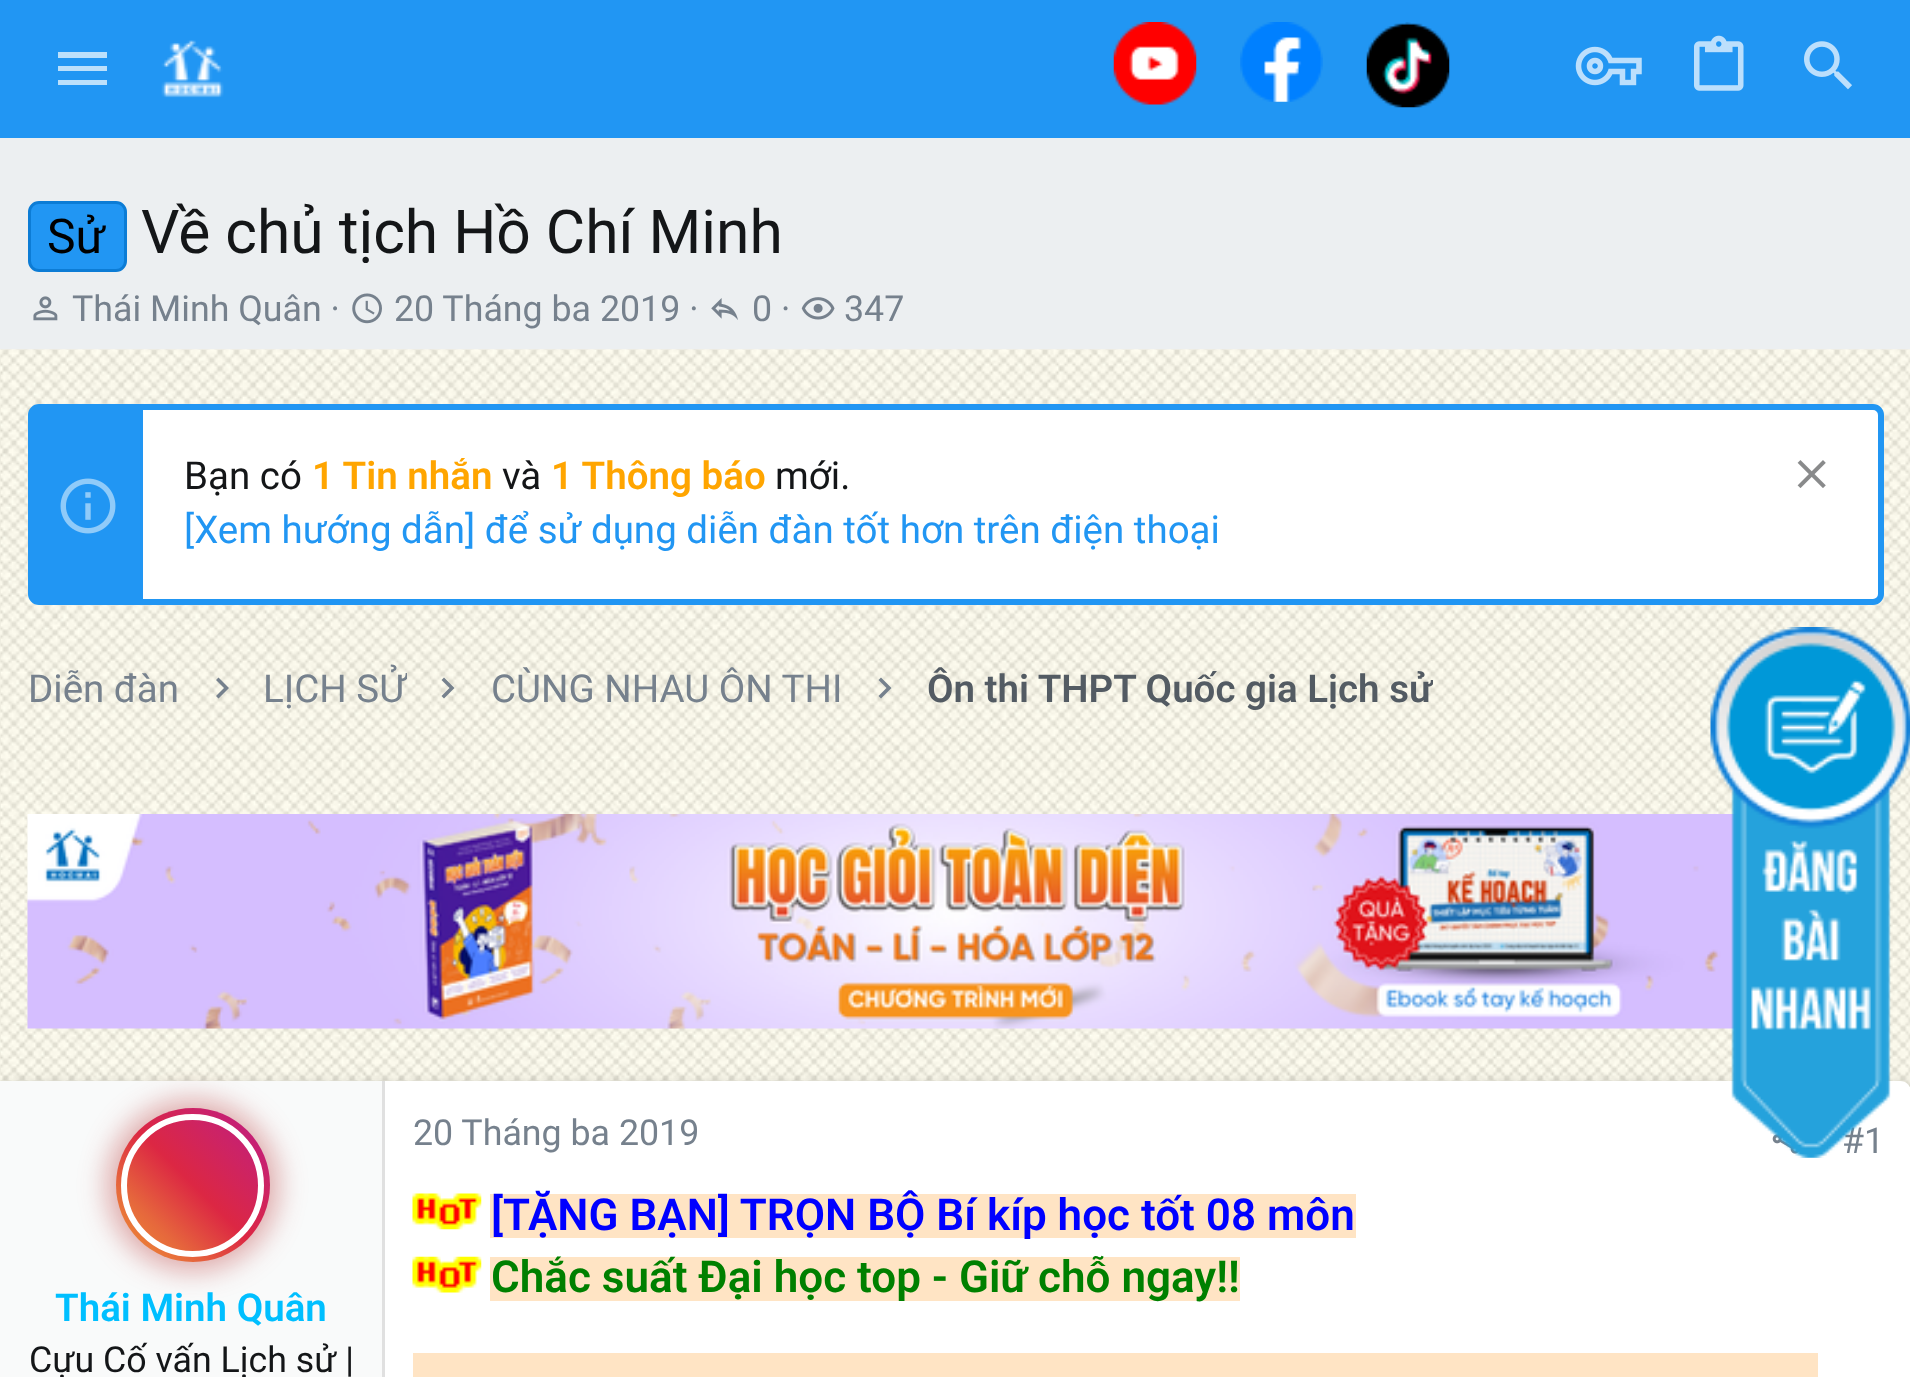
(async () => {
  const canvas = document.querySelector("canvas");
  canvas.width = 1910;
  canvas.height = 1377;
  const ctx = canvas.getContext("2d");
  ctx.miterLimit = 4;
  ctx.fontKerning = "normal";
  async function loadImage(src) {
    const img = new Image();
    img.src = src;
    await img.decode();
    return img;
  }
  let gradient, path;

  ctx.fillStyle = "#eceff1";
  ctx.fillRect(0, 0, 1910, 1377);
  ctx.fillStyle = "#2196f3";
  ctx.fillRect(0, 0, 1910, 138);
  ctx.fillStyle = "#bce0fb";
  path = new Path2D("M58 52H107V58H58ZM58 66H107V71H58ZM58 80H107V85H58Z");
  ctx.fill(path);
  ctx.drawImage(await loadImage("img/1.png"), 161, 40, 63, 58);
  ctx.drawImage(await loadImage("img/2.png"), 1113, 22, 84, 83);
  ctx.drawImage(await loadImage("img/3.png"), 1240, 22, 83, 80);
  ctx.drawImage(await loadImage("img/4.png"), 1366, 22, 84, 86);
  ctx.drawImage(await loadImage("img/5.png"), 1575, 46, 67, 40);
  ctx.drawImage(await loadImage("img/6.png"), 1694, 35, 50, 56);
  ctx.drawImage(await loadImage("img/7.png"), 1804, 41, 48, 49);
  ctx.fillStyle = "#2196f3";
  ctx.beginPath();
  ctx.roundRect(29.5, 202.5, 96, 68, 9.5);
  ctx.fill();
  ctx.strokeStyle = "#0c7cd5";
  ctx.lineWidth = 3;
  ctx.stroke();
  ctx.drawImage(await loadImage("img/8.png"), 33, 296, 25, 25);
  ctx.drawImage(await loadImage("img/9.png"), 352, 293, 30, 31);
  ctx.drawImage(await loadImage("img/10.png"), 711, 298, 27, 22);
  ctx.drawImage(await loadImage("img/11.png"), 801, 297, 34, 23);
  ctx.drawImage(await loadImage("img/12.png"), 0, 349, 1910, 739);
  ctx.fillStyle = "#ffffff";
  ctx.beginPath();
  ctx.roundRect(31, 407, 1850, 195, 8);
  ctx.fill();
  ctx.strokeStyle = "#2196f3";
  ctx.lineWidth = 6;
  ctx.stroke();
  ctx.fillStyle = "#2196f3";
  ctx.fillRect(34, 410, 109, 189);
  ctx.drawImage(await loadImage("img/13.png"), 60, 478, 56, 56);
  ctx.drawImage(await loadImage("img/14.png"), 1797, 460, 29, 28);
  ctx.fillStyle = "#76818d";
  path = new Path2D("M216 696L224 688L216 680L218.5 677.5L229 688L218.5 698.5Z");
  ctx.fill(path);
  path = new Path2D("M441.5 696L449.5 688L441.5 680L444 677.5L454.5 688L444 698.5Z");
  ctx.fill(path);
  path = new Path2D("M878.5 696L886.5 688L878.5 680L881 677.5L891.5 688L881 698.5Z");
  ctx.fill(path);
  ctx.drawImage(await loadImage("img/15.png"), 27, 814, 1709, 215);
  ctx.fillStyle = "rgba(0, 0, 0, 0.2)";
  ctx.filter = "blur(7px)";
  ctx.beginPath();
  ctx.roundRect(0, 1084, 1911, 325, 11);
  ctx.fill();
  ctx.filter = "none";
  ctx.fillStyle = "#ffffff";
  ctx.beginPath();
  ctx.roundRect(0, 1081, 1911, 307, 11);
  ctx.fill();
  ctx.drawImage(await loadImage("img/16.png"), 1772, 1134, 27, 20);
  ctx.drawImage(await loadImage("img/17.png"), 412, 1193, 70, 37);
  ctx.fillStyle = "#ffe4c4";
  ctx.fillRect(490, 1194, 866, 44);
  ctx.drawImage(await loadImage("img/18.png"), 412, 1256, 70, 37);
  for (const [x, y, w, h, color] of [
    [490, 1257, 750, 44, "#ffe4c4"],
    [413, 1353, 1405, 24, "#ffe4c4"],
    [0, 1081, 382, 296, "#f9fafa"],
    [382, 1081, 3, 296, "#e0e0e0"],
  ]) {
    ctx.fillStyle = color;
    ctx.fillRect(x, y, w, h);
  }
  ctx.fillStyle = "rgba(178, 34, 34, 0.38)";
  ctx.filter = "blur(14px)";
  ctx.beginPath();
  ctx.roundRect(107, 1100, 171, 171, 85.5);
  ctx.fill();
  ctx.filter = "none";
  gradient = ctx.createLinearGradient(116, 1262, 270, 1108);
  gradient.addColorStop(0, "#f09433");
  gradient.addColorStop(0.25, "#e6683c");
  gradient.addColorStop(0.5, "#dc2743");
  gradient.addColorStop(0.75, "#cc2366");
  gradient.addColorStop(1, "#bc1888");
  ctx.fillStyle = gradient;
  ctx.beginPath();
  ctx.arc(193, 1185, 77, 0, Math.PI * 2);
  ctx.fill();
  ctx.beginPath();
  ctx.arc(192.5, 1185.5, 68.5, 0, Math.PI * 2);
  ctx.strokeStyle = "#ffffff";
  ctx.stroke();
  ctx.font = "48px Roboto";
  ctx.fillStyle = "#000000";
  ctx.fillText("Sử", 47, 253);
  ctx.font = "60.5px Roboto";
  ctx.fillStyle = "#141618";
  ctx.fillText("Về chủ tịch Hồ Chí Minh", 141, 253);
  ctx.font = "35.75px Roboto";
  ctx.fillStyle = "#76818d";
  for (const [text, x, y] of [
    ["Thái Minh Quân ·", 72, 321],
    ["20 Tháng ba 2019 ·", 394, 321],
    ["0 ·", 752, 321],
    ["347", 844, 321],
  ]) {
    ctx.fillText(text, x, y);
  }
  ctx.font = "38.5px Roboto";
  ctx.fillStyle = "#141618";
  ctx.fillText("Bạn có", 184, 489);
  ctx.font = "600 38.5px Roboto";
  ctx.fillStyle = "#ffa500";
  ctx.fillText("1 Tin nhắn", 312, 489);
  ctx.font = "38.5px Roboto";
  ctx.fillStyle = "#141618";
  ctx.fillText("và", 502, 489);
  ctx.font = "600 38.5px Roboto";
  ctx.fillStyle = "#ffa500";
  ctx.fillText("1 Thông báo", 551, 489);
  ctx.font = "38.5px Roboto";
  ctx.fillStyle = "#141618";
  ctx.fillText("mới.", 775, 489);
  ctx.fillStyle = "#2196f3";
  ctx.fillText("[Xem hướng dẫn] để sử dụng diễn đàn tốt hơn trên điện thoại", 184, 543);
  ctx.fillStyle = "#76818d";
  ctx.fillText("Diễn đàn", 28, 702);
  ctx.save();
  ctx.beginPath();
  ctx.rect(264, 663, 143, 55);
  ctx.clip();
  ctx.fillText("LỊCH SỬ", 263, 702);
  ctx.restore();
  ctx.fillText("CÙNG NHAU ÔN THI", 491, 702);
  ctx.save();
  ctx.beginPath();
  ctx.rect(927, 663, 506, 55);
  ctx.clip();
  ctx.font = "600 38.5px Roboto";
  ctx.fillStyle = "#535b63";
  ctx.fillText("Ôn thi THPT Quốc gia Lịch sử", 927, 702);
  ctx.restore();
  ctx.font = "35.75px Roboto";
  ctx.fillText("20 Tháng ba 2019", 413, 1145);
  ctx.fillText("#1", 1842, 1153);
  ctx.font = "600 44px Roboto";
  ctx.fillStyle = "#0000ff";
  ctx.fillText("[TẶNG BẠN] TRỌN BỘ Bí kíp học tốt 08 môn", 491, 1230);
  ctx.fillStyle = "#008000";
  ctx.fillText("Chắc suất Đại học top - Giữ chỗ ngay!!", 491, 1292);
  ctx.font = "600 38.5px Roboto";
  ctx.fillStyle = "#00bfff";
  ctx.fillText("Thái Minh Quân", 55, 1321);
  ctx.font = "35.75px Roboto";
  ctx.fillStyle = "#141618";
  ctx.fillText("Cựu Cố vấn Lịch sử |", 29, 1372);
  ctx.drawImage(await loadImage("img/19.png"), 1710, 627, 200, 531);
})();
